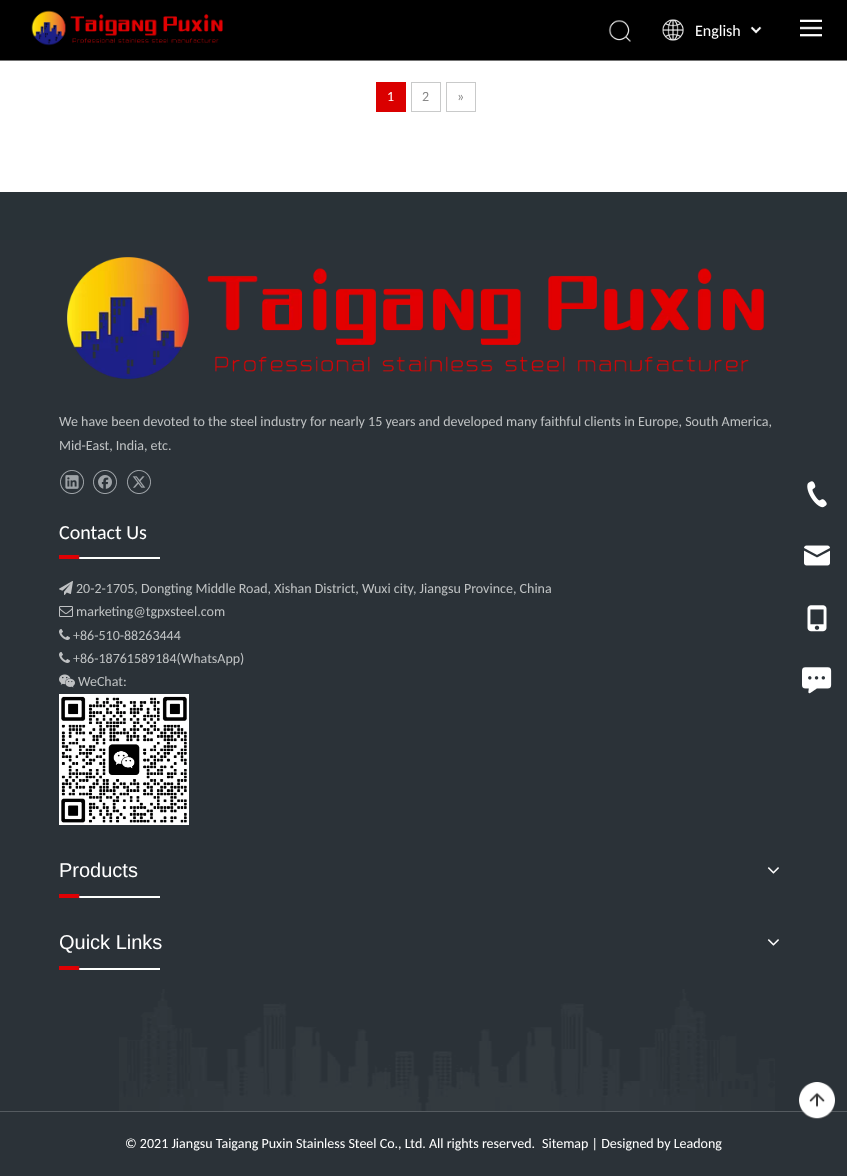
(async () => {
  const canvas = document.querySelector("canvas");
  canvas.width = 847;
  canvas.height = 1176;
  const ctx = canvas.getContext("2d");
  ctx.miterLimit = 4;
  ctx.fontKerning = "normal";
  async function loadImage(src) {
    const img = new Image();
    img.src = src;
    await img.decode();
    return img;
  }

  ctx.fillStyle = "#ffffff";
  ctx.fillRect(0, 0, 847, 1176);
  ctx.fillStyle = "#000000";
  ctx.fillRect(0, 0, 847, 60);
  ctx.fillStyle = "#737373";
  ctx.fillRect(0, 60, 847, 1);
  ctx.drawImage(await loadImage("img/1.png"), 31, 10, 192, 36);
  ctx.drawImage(await loadImage("img/2.png"), 608, 20, 23, 22);
  ctx.drawImage(await loadImage("img/3.png"), 662, 19, 22, 22);
  ctx.drawImage(await loadImage("img/4.png"), 750, 26, 12, 8);
  ctx.drawImage(await loadImage("img/5.png"), 800, 19, 22, 18);
  ctx.fillStyle = "#da0000";
  ctx.fillRect(376, 82, 30, 30);
  ctx.strokeStyle = "#c9caca";
  ctx.strokeRect(411.5, 82.5, 29, 29);
  ctx.strokeRect(446.5, 82.5, 29, 29);
  ctx.fillStyle = "#293237";
  ctx.fillRect(0, 192, 847, 48);
  ctx.fillStyle = "#2b3238";
  ctx.fillRect(0, 240, 847, 871);
  ctx.drawImage(await loadImage("img/6.png"), 807, 481, 20, 27);
  ctx.drawImage(await loadImage("img/7.png"), 804, 545, 26, 21);
  ctx.drawImage(await loadImage("img/8.png"), 807, 605, 20, 27);
  ctx.drawImage(await loadImage("img/9.png"), 802, 667, 30, 27);
  ctx.drawImage(await loadImage("img/10.png"), 119, 989, 656, 122);
  ctx.drawImage(await loadImage("img/11.png"), 67, 257, 697, 122);
  ctx.drawImage(await loadImage("img/12.png"), 60, 470, 24, 24);
  ctx.drawImage(await loadImage("img/13.png"), 93, 470, 24, 24);
  ctx.drawImage(await loadImage("img/14.png"), 127, 470, 24, 24);
  ctx.drawImage(await loadImage("img/15.png"), 59, 555, 101, 4);
  ctx.drawImage(await loadImage("img/16.png"), 59, 581, 14, 14);
  ctx.drawImage(await loadImage("img/17.png"), 59, 606, 14, 11);
  ctx.drawImage(await loadImage("img/18.png"), 59, 629, 11, 11);
  ctx.drawImage(await loadImage("img/18.png"), 59, 652, 11, 11);
  ctx.drawImage(await loadImage("img/19.png"), 59, 674, 16, 14);
  ctx.drawImage(await loadImage("img/20.png"), 59, 694, 130, 131);
  ctx.drawImage(await loadImage("img/15.png"), 59, 894, 101, 4);
  ctx.drawImage(await loadImage("img/21.png"), 767, 867, 12, 7);
  ctx.drawImage(await loadImage("img/15.png"), 59, 966, 101, 4);
  ctx.drawImage(await loadImage("img/21.png"), 767, 939, 12, 7);
  ctx.fillRect(0, 1112, 847, 64);
  ctx.fillStyle = "#555b60";
  ctx.fillRect(0, 1111, 847, 1);
  ctx.drawImage(await loadImage("img/22.png"), 799, 1082, 36, 37);
  ctx.font = "16px Carlito";
  ctx.fillStyle = "#ffffff";
  ctx.fillText("English", 695, 36);
  ctx.font = "14px Carlito";
  ctx.fillText("1", 387, 101);
  ctx.fillStyle = "#898989";
  ctx.fillText("2", 422, 101);
  ctx.fillText("»", 457, 101);
  ctx.fillStyle = "#bfc2c3";
  ctx.fillText("We have been devoted to the steel industry for nearly 15 years and developed many faithful clients in Europe, South America,", 59, 426);
  ctx.fillText("Mid-East, India, etc.", 59, 450);
  ctx.font = "20px Carlito";
  ctx.fillStyle = "#ffffff";
  ctx.fillText("Contact Us", 59, 539);
  ctx.font = "14px Carlito";
  ctx.fillStyle = "#bfc2c3";
  for (const [text, x, y] of [
    ["20-2-1705, Dongting Middle Road, Xishan District, Wuxi city, Jiangsu Province, China", 76, 593],
    ["marketing@tgpxsteel.com", 76, 616],
    ["+86-510-88263444", 73, 640],
    ["+86-18761589184(WhatsApp)", 73, 663],
    ["WeChat:", 78, 686],
  ]) {
    ctx.fillText(text, x, y);
  }
  ctx.font = "20px Liberation Sans";
  ctx.fillStyle = "#ffffff";
  ctx.fillText("Products", 59, 877);
  ctx.fillText("Quick Links", 59, 949);
  ctx.font = "14px Carlito";
  ctx.fillText("© 2021 Jiangsu Taigang Puxin Stainless Steel Co., Ltd. All rights reserved.", 125, 1148);
  ctx.fillText("Sitemap | Designed by Leadong", 542, 1148);
})();
